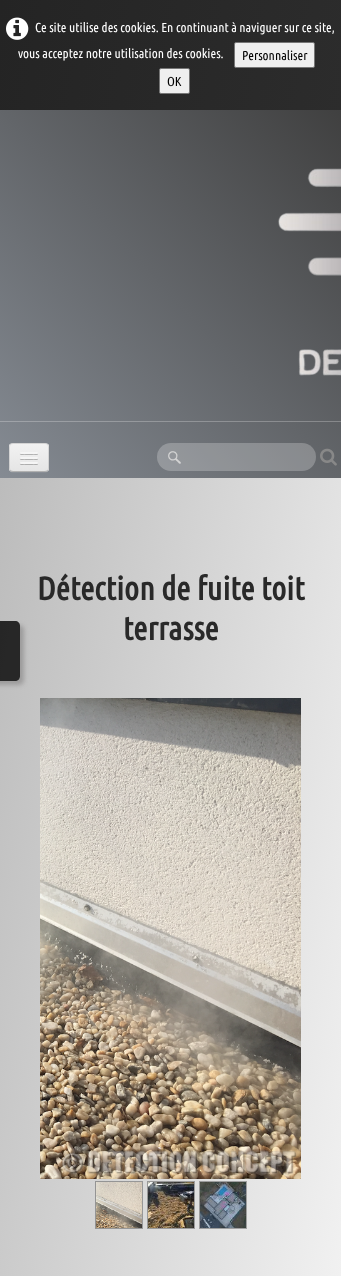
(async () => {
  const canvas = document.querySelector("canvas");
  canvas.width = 341;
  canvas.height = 1276;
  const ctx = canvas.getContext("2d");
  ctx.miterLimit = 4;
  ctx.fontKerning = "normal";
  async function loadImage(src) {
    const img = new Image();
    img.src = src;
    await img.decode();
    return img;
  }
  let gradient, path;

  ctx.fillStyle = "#ffffff";
  ctx.fillRect(0, 0, 341, 1276);
  gradient = ctx.createLinearGradient(-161, 956, 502, 1067);
  gradient.addColorStop(0, "#b3b3b3");
  gradient.addColorStop(1, "#ffffff");
  ctx.fillStyle = gradient;
  ctx.fillRect(0, 478, 341, 798);
  gradient = ctx.createLinearGradient(-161, 956, 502, 1067);
  gradient.addColorStop(0, "#242424");
  gradient.addColorStop(1, "#333333");
  ctx.fillStyle = gradient;
  ctx.fillRect(0, 0, 341, 110);
  ctx.drawImage(await loadImage("img/1.png"), 6, 17, 23, 23);
  ctx.fillStyle = "#efefef";
  ctx.beginPath();
  ctx.roundRect(234.5, 42.5, 80, 25, 1.5);
  ctx.fill();
  ctx.strokeStyle = "#767676";
  ctx.stroke();
  ctx.beginPath();
  ctx.roundRect(159.5, 68.5, 30, 25, 1.5);
  ctx.fill();
  ctx.stroke();
  gradient = ctx.createLinearGradient(-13, 464, 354, 124);
  gradient.addColorStop(0, "#858b93");
  gradient.addColorStop(1, "#404040");
  ctx.fillStyle = gradient;
  ctx.fillRect(0, 110, 341, 368);
  gradient = ctx.createLinearGradient(-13, 464, 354, 124);
  gradient.addColorStop(0, "#a4a8ae");
  gradient.addColorStop(1, "#707070");
  ctx.fillStyle = gradient;
  ctx.fillRect(0, 421, 341, 1);
  ctx.drawImage(await loadImage("img/2.png"), 278, 168, 63, 208);
  ctx.fillStyle = "rgba(255, 255, 255, 0.07)";
  path = new Path2D("M9 468C9 474 14 473 18 473H40C44 473 49 474 49 468C49 470 47 472 45 472H13C11 472 9 470 9 468Z");
  ctx.fill(path);
  ctx.fillStyle = "#ededed";
  ctx.beginPath();
  ctx.roundRect(9, 443, 40, 29, 4);
  ctx.fill();
  ctx.save();
  ctx.beginPath();
  ctx.roundRect(9, 443, 40, 29, 4);
  ctx.clip();
  gradient = ctx.createLinearGradient(29, 444, 29, 471);
  gradient.addColorStop(0, "#f2f2f2");
  gradient.addColorStop(1, "#e5e5e5");
  ctx.fillStyle = gradient;
  ctx.fillRect(9, 444, 40, 27);
  ctx.restore();
  path = new Path2D("M47.5 470.5C47 471 46 471.5 45 471.5H13C12 471.5 11 471 10.5 470.5");
  ctx.strokeStyle = "rgba(0, 0, 0, 0.25)";
  ctx.stroke(path);
  path = new Path2D("M10.5 470.5C10 470 9.5 469 9.5 468V447C9.5 446 10 445 10.5 444.5C11 444 12 443.5 13 443.5H45C46 443.5 47 444 47.5 444.5C48 445 48.5 446 48.5 447V468C48.5 469 48 470 47.5 470.5");
  ctx.strokeStyle = "rgba(0, 0, 0, 0.1)";
  ctx.stroke(path);
  ctx.fillStyle = "#b2b2b2";
  path = new Path2D("M20 453.5C19 455.5 23.5 455 23.5 455H34.5C34.5 455 39 455.5 38 453.5C37 454.5 30.5 454 29 454C27.5 454 21 454.5 20 453.5Z");
  ctx.fill(path);
  ctx.fillStyle = "#f5f5f5";
  ctx.beginPath();
  ctx.roundRect(20, 452, 18, 2, 1);
  ctx.fill();
  ctx.fillStyle = "#b0b0b0";
  path = new Path2D("M20 458.5C19 460.5 23.5 460 23.5 460H34.5C34.5 460 39 460.5 38 458.5C37 459.5 30.5 459 29 459C27.5 459 21 459.5 20 458.5Z");
  ctx.fill(path);
  ctx.fillStyle = "#f5f5f5";
  ctx.beginPath();
  ctx.roundRect(20, 457, 18, 2, 1);
  ctx.fill();
  ctx.fillStyle = "#aeaeae";
  path = new Path2D("M20 463.5C19 465.5 23.5 465 23.5 465H34.5C34.5 465 39 465.5 38 463.5C37 464.5 30.5 464 29 464C27.5 464 21 464.5 20 463.5Z");
  ctx.fill(path);
  ctx.fillStyle = "#f5f5f5";
  ctx.beginPath();
  ctx.roundRect(20, 462, 18, 2, 1);
  ctx.fill();
  ctx.fillStyle = "rgba(255, 255, 255, 0.24)";
  ctx.beginPath();
  ctx.roundRect(157, 443, 159, 28, 14);
  ctx.fill();
  ctx.drawImage(await loadImage("img/3.png"), 168, 451, 13, 13);
  ctx.drawImage(await loadImage("img/4.png"), 320, 448, 17, 18);
  ctx.drawImage(await loadImage("img/5.png"), 40, 698, 261, 481);
  ctx.strokeStyle = "rgba(0, 0, 0, 0.3)";
  ctx.strokeRect(95.5, 1181.5, 47, 47);
  ctx.strokeRect(147.5, 1181.5, 47, 47);
  ctx.strokeRect(199.5, 1181.5, 47, 47);
  ctx.drawImage(await loadImage("img/6.png"), 96, 1182, 46, 46);
  ctx.drawImage(await loadImage("img/7.png"), 148, 1182, 46, 46);
  ctx.drawImage(await loadImage("img/8.png"), 200, 1182, 46, 46);
  ctx.save();
  path = new Path2D("M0 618H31V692H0ZM-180 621H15C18 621 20 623 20 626V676C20 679 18 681 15 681H-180Z");
  ctx.clip(path, "evenodd");
  ctx.fillStyle = "rgba(121, 119, 119, 0.51)";
  ctx.filter = "blur(2px)";
  ctx.beginPath();
  ctx.roundRect(-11, 625, 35, 60, 5);
  ctx.fill();
  ctx.filter = "none";
  ctx.restore();
  ctx.fillStyle = "rgba(0, 0, 0, 0.8)";
  path = new Path2D("M-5 621H15C18 621 20 623 20 626V676C20 679 18 681 15 681H-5Z");
  ctx.fill(path);
  ctx.font = "13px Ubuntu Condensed";
  ctx.fillStyle = "#ffffff";
  ctx.fillText("Ce site utilise des cookies. En continuant à naviguer sur ce site,", 35, 32);
  ctx.fillText("vous acceptez notre utilisation des cookies.", 18, 58);
  ctx.fillStyle = "#000000";
  ctx.fillText("Personnaliser", 242, 60);
  ctx.fillText("OK", 167, 86);
  ctx.font = "bold 32.5px Ubuntu Condensed";
  ctx.fillStyle = "#292929";
  ctx.fillText("Détection de fuite toit", 37, 600);
  ctx.fillText("terrasse", 123, 640);
})();
